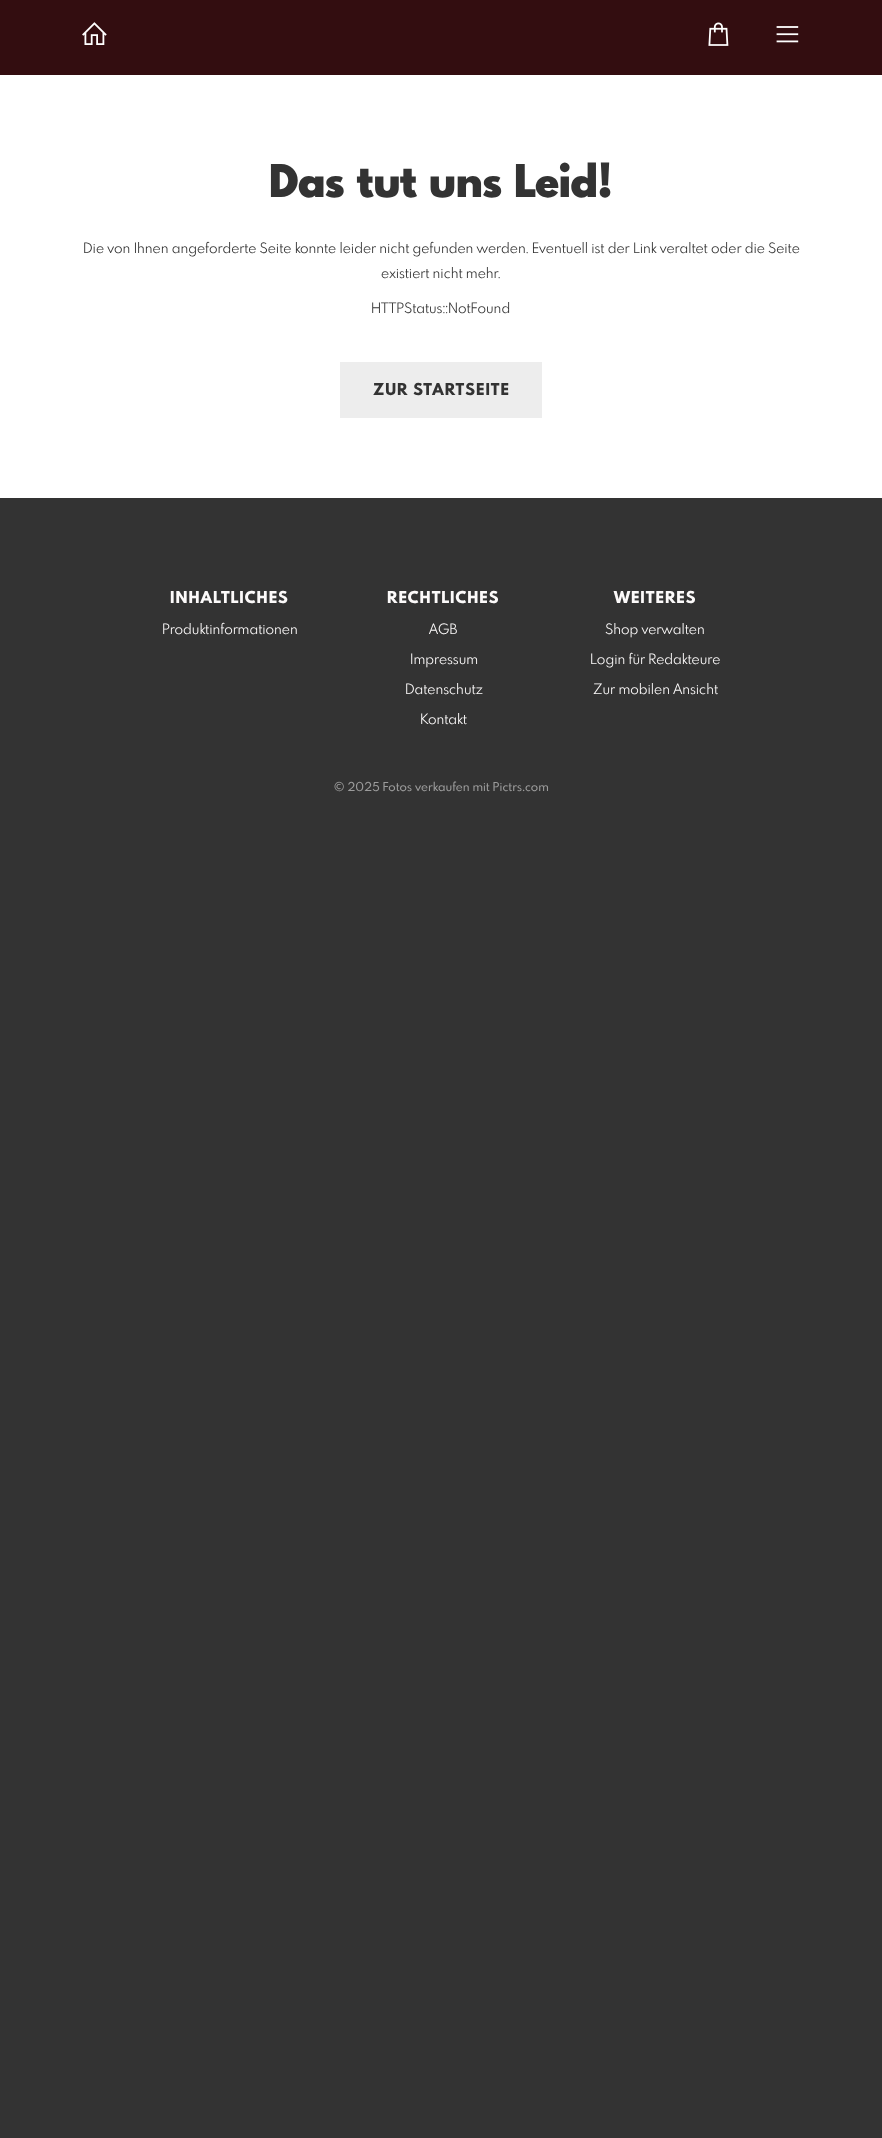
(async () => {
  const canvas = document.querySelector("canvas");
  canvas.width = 882;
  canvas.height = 2138;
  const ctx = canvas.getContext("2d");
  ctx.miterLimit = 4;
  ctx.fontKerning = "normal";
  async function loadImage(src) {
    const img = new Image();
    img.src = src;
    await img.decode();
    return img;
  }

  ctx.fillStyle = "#333333";
  ctx.fillRect(0, 0, 882, 2138);
  ctx.fillStyle = "#330d10";
  ctx.fillRect(0, 0, 882, 75);
  ctx.drawImage(await loadImage("img/1.png"), 82, 22, 25, 23);
  ctx.drawImage(await loadImage("img/2.png"), 708, 22, 21, 24);
  ctx.drawImage(await loadImage("img/3.png"), 776, 26, 23, 17);
  ctx.fillStyle = "#ffffff";
  ctx.fillRect(0, 75, 882, 423);
  ctx.fillStyle = "#ededed";
  ctx.fillRect(340, 362, 202, 56);
  ctx.font = "900 44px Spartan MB";
  ctx.fillStyle = "#333333";
  ctx.fillText("Das tut uns Leid!", 269, 197);
  ctx.font = "14px Spartan MB";
  for (const [text, x, y] of [
    ["Die von Ihnen angeforderte Seite konnte leider nicht gefunden werden. Eventuell ist der Link veraltet oder die Seite", 83, 253],
    ["existiert nicht mehr.", 381, 278],
    ["HTTPStatus::NotFound", 371, 313],
  ]) {
    ctx.fillText(text, x, y);
  }
  ctx.letterSpacing = "1px";
  ctx.font = "800 16px Spartan MB";
  ctx.fillText("ZUR STARTSEITE", 373, 395);
  ctx.fillStyle = "#fcfafa";
  ctx.fillText("INHALTLICHES", 170, 603);
  ctx.letterSpacing = "0px";
  ctx.font = "14px Spartan MB";
  ctx.fillText("Produktinformationen", 162, 634);
  ctx.letterSpacing = "1px";
  ctx.font = "800 16px Spartan MB";
  ctx.fillText("RECHTLICHES", 387, 603);
  ctx.letterSpacing = "0px";
  ctx.font = "14px Spartan MB";
  for (const [text, x, y] of [
    ["AGB", 429, 634],
    ["Impressum", 410, 664],
    ["Datenschutz", 405, 694],
    ["Kontakt", 420, 724],
  ]) {
    ctx.fillText(text, x, y);
  }
  ctx.letterSpacing = "1px";
  ctx.font = "800 16px Spartan MB";
  ctx.fillText("WEITERES", 614, 603);
  ctx.letterSpacing = "0px";
  ctx.font = "14px Spartan MB";
  for (const [text, x, y] of [
    ["Shop verwalten", 605, 634],
    ["Login für Redakteure", 590, 664],
    ["Zur mobilen Ansicht", 593, 694],
  ]) {
    ctx.fillText(text, x, y);
  }
  ctx.font = "500 12px Spartan MB";
  ctx.fillStyle = "#9b9b9b";
  ctx.fillText("© 2025 Fotos verkaufen mit Pictrs.com", 334, 791);
})();
